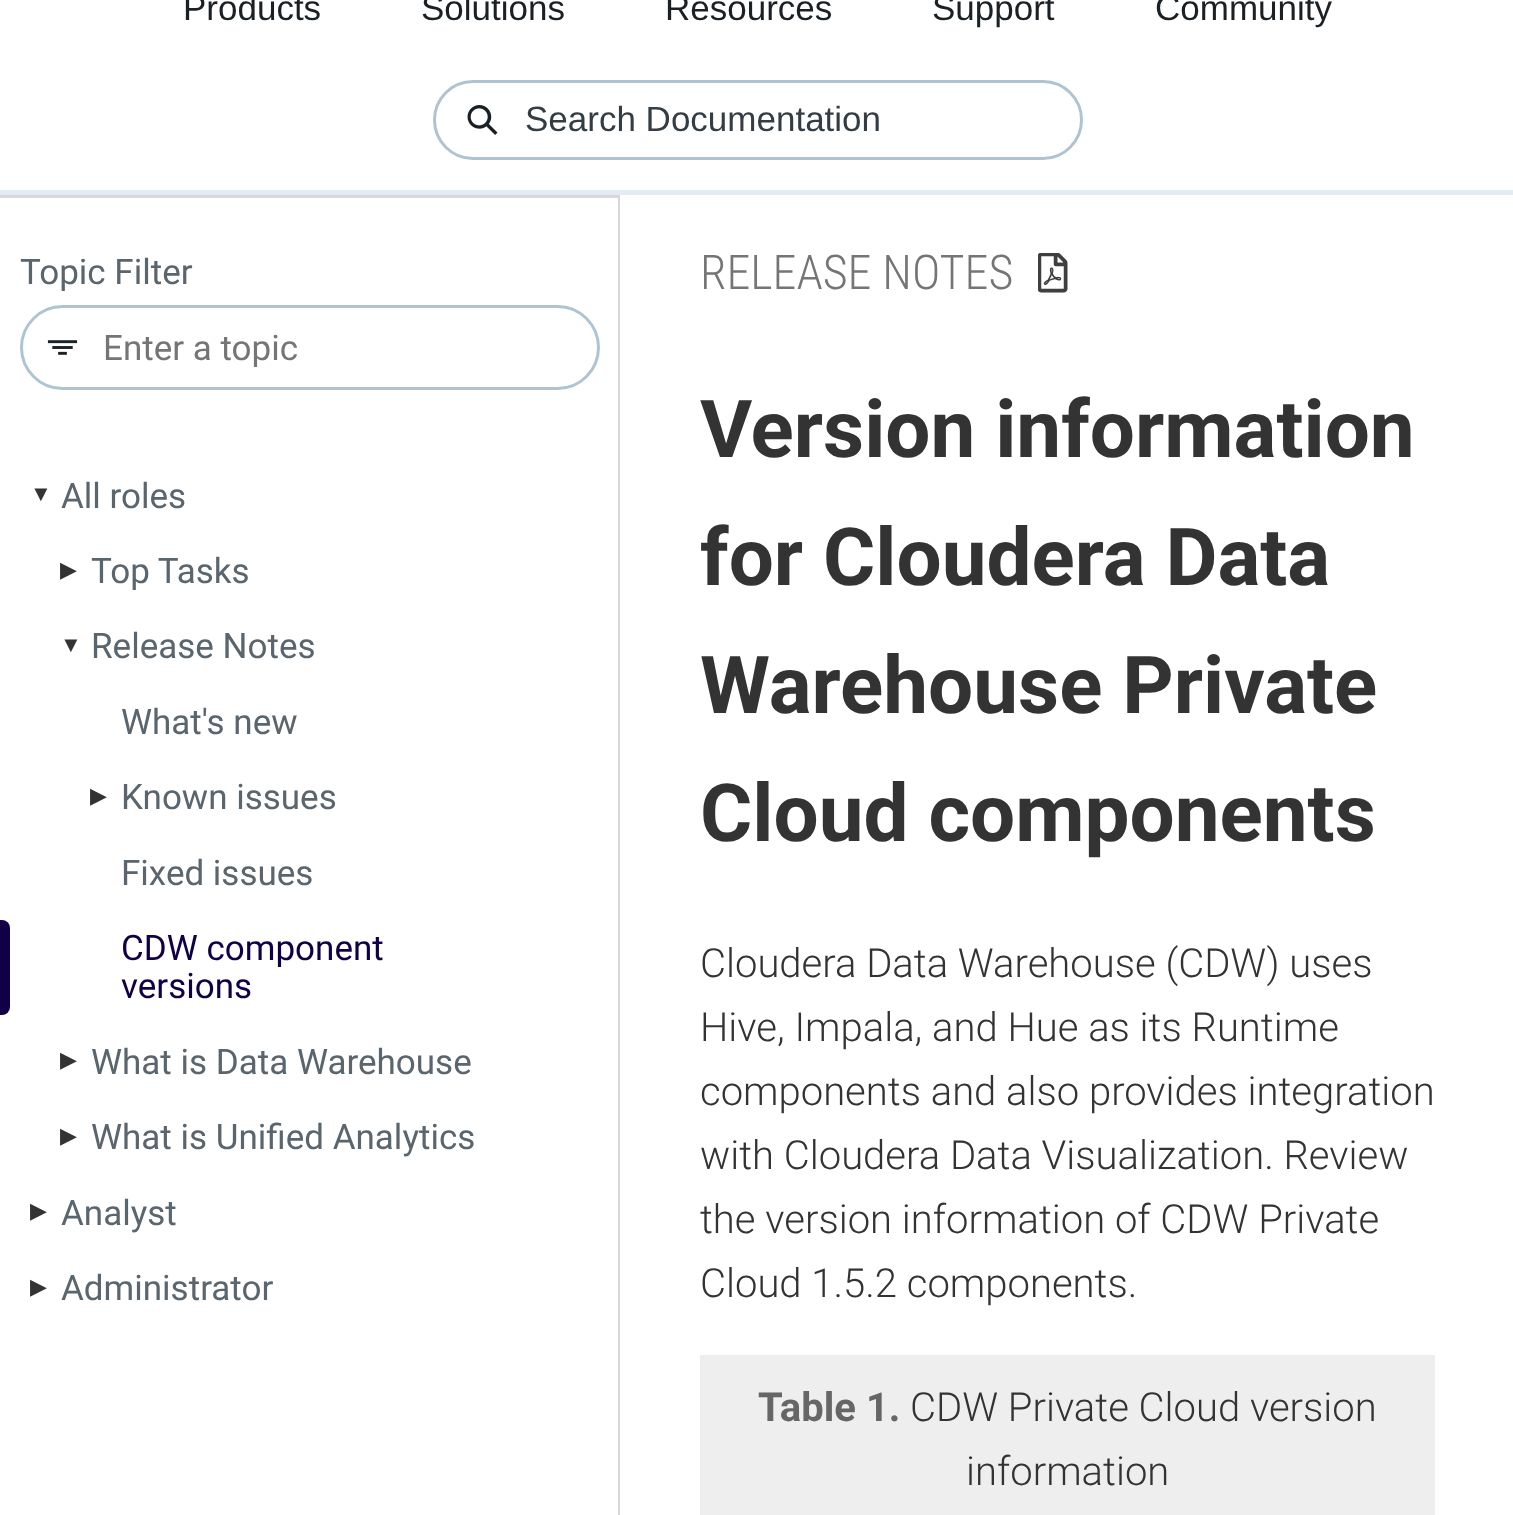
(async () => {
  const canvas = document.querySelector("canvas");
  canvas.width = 1513;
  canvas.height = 1515;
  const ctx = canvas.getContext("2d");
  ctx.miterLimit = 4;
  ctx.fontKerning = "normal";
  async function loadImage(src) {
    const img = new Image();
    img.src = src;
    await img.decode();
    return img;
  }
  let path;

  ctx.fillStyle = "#ffffff";
  ctx.fillRect(0, 0, 1513, 1515);
  ctx.fillStyle = "#e5ecf1";
  ctx.fillRect(0, 190, 1513, 5);
  ctx.beginPath();
  ctx.roundRect(434.5, 81.5, 647, 77, 38.5);
  ctx.strokeStyle = "#afc4d2";
  ctx.lineWidth = 3;
  ctx.stroke();
  ctx.drawImage(await loadImage("img/1.png"), 467, 105, 31, 30);
  ctx.save();
  ctx.beginPath();
  ctx.rect(0, 195, 620, 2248);
  ctx.clip();
  ctx.fillStyle = "#d6d8db";
  path = new Path2D("M-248-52H868V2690H-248ZM-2 198H618V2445H-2Z");
  ctx.fill(path, "evenodd");
  ctx.restore();
  ctx.beginPath();
  ctx.roundRect(21.5, 306.5, 577, 82, 41);
  ctx.stroke();
  ctx.drawImage(await loadImage("img/2.png"), 47, 340, 31, 15);
  ctx.fillStyle = "#120046";
  ctx.beginPath();
  ctx.roundRect(0, 920, 10, 95, [0, 8, 8, 0]);
  ctx.fill();
  ctx.drawImage(await loadImage("img/3.png"), 1038, 253, 30, 40);
  ctx.fillStyle = "#eeeeee";
  ctx.fillRect(700, 1355, 735, 160);
  ctx.font = "35px Liberation Sans";
  ctx.fillStyle = "#1a2024";
  for (const [text, x, y] of [
    ["Products", 183, 20],
    ["Solutions", 421, 20],
    ["Resources", 665, 20],
    ["Support", 932, 20],
    ["Community", 1155, 20],
  ]) {
    ctx.fillText(text, x, y);
  }
  ctx.fillStyle = "#333d43";
  ctx.fillText("Search Documentation", 525, 131);
  ctx.font = "35px Roboto";
  ctx.fillStyle = "#5a656d";
  ctx.fillText("Topic Filter", 20, 284);
  ctx.fillStyle = "#757575";
  ctx.fillText("Enter a topic", 103, 360);
  ctx.font = "22px Liberation Sans";
  ctx.fillStyle = "#333333";
  ctx.fillText("▼", 30, 501);
  ctx.font = "35px Roboto";
  ctx.fillStyle = "#5a656d";
  ctx.fillText("All roles", 61, 508);
  ctx.font = "22px DejaVu Sans";
  ctx.fillStyle = "#333333";
  ctx.fillText("▶︎", 60, 577);
  ctx.font = "35px Roboto";
  ctx.fillStyle = "#5a656d";
  ctx.fillText("Top Tasks", 91, 583);
  ctx.font = "22px Liberation Sans";
  ctx.fillStyle = "#333333";
  ctx.fillText("▼", 60, 652);
  ctx.font = "35px Roboto";
  ctx.fillStyle = "#5a656d";
  ctx.fillText("Release Notes", 91, 658);
  ctx.fillText("What's new", 121, 734);
  ctx.font = "22px DejaVu Sans";
  ctx.fillStyle = "#333333";
  ctx.fillText("▶︎", 90, 803);
  ctx.font = "35px Roboto";
  ctx.fillStyle = "#5a656d";
  ctx.fillText("Known issues", 121, 809);
  ctx.fillText("Fixed issues", 121, 885);
  ctx.fillStyle = "#120046";
  ctx.fillText("CDW component", 121, 960);
  ctx.fillText("versions", 121, 998);
  ctx.font = "22px DejaVu Sans";
  ctx.fillStyle = "#333333";
  ctx.fillText("▶︎", 60, 1067);
  ctx.font = "35px Roboto";
  ctx.fillStyle = "#5a656d";
  ctx.fillText("What is Data Warehouse", 91, 1074);
  ctx.font = "22px DejaVu Sans";
  ctx.fillStyle = "#333333";
  ctx.fillText("▶︎", 60, 1143);
  ctx.font = "35px Roboto";
  ctx.fillStyle = "#5a656d";
  ctx.fillText("What is Unified Analytics", 91, 1149);
  ctx.font = "22px DejaVu Sans";
  ctx.fillStyle = "#333333";
  ctx.fillText("▶︎", 30, 1218);
  ctx.font = "35px Roboto";
  ctx.fillStyle = "#5a656d";
  ctx.fillText("Analyst", 61, 1225);
  ctx.font = "22px DejaVu Sans";
  ctx.fillStyle = "#333333";
  ctx.fillText("▶︎", 30, 1294);
  ctx.font = "35px Roboto";
  ctx.fillStyle = "#5a656d";
  ctx.fillText("Administrator", 61, 1300);
  ctx.font = "300 48px Roboto Condensed";
  ctx.fillStyle = "#757575";
  ctx.fillText("RELEASE NOTES", 700, 289);
  ctx.font = "bold 80px Roboto";
  ctx.fillStyle = "#333333";
  for (const [text, x, y] of [
    ["Version information", 700, 457],
    ["for Cloudera Data", 700, 585],
    ["Warehouse Private", 700, 713],
    ["Cloud components", 700, 841],
  ]) {
    ctx.fillText(text, x, y);
  }
  ctx.font = "300 40px Roboto";
  for (const [text, x, y] of [
    ["Cloudera Data Warehouse (CDW) uses", 700, 977],
    ["Hive, Impala, and Hue as its Runtime", 700, 1041],
    ["components and also provides integration", 700, 1105],
    ["with Cloudera Data Visualization. Review", 700, 1169],
    ["the version information of CDW Private", 700, 1233],
    ["Cloud 1.5.2 components.", 700, 1297],
  ]) {
    ctx.fillText(text, x, y);
  }
  ctx.font = "bold 40px Roboto";
  ctx.fillStyle = "#666666";
  ctx.fillText("Table 1.", 758, 1421);
  ctx.font = "300 40px Roboto";
  ctx.fillStyle = "#333333";
  ctx.fillText("CDW Private Cloud version", 910, 1421);
  ctx.fillText("information", 966, 1485);
})();
